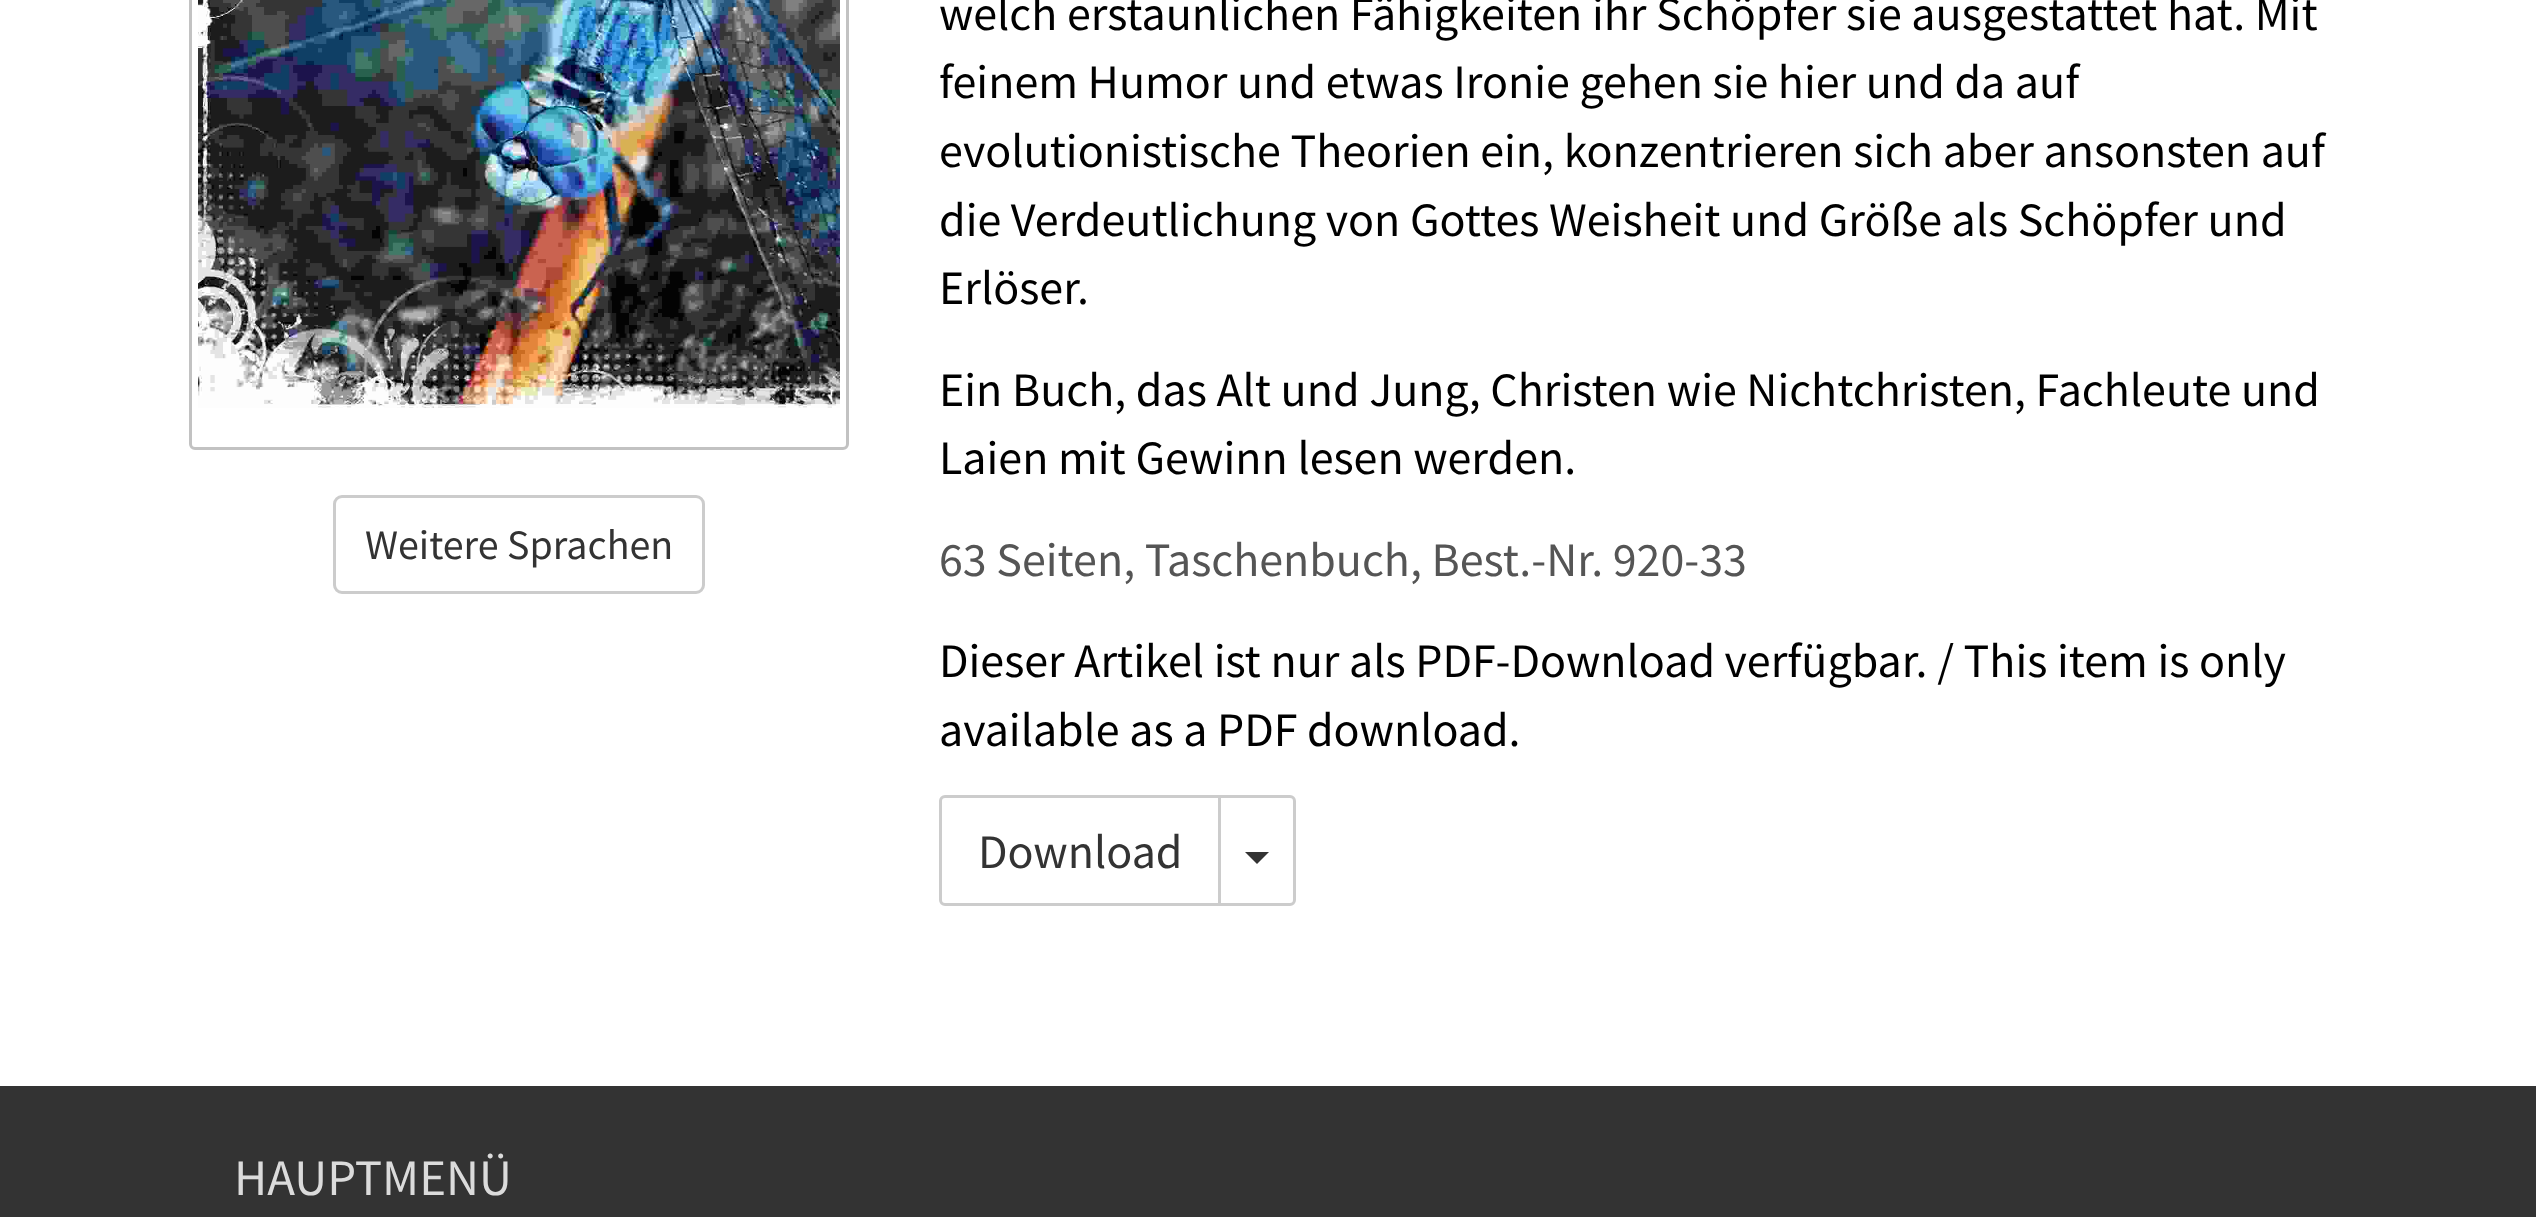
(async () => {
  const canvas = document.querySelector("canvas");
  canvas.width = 2536;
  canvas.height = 1217;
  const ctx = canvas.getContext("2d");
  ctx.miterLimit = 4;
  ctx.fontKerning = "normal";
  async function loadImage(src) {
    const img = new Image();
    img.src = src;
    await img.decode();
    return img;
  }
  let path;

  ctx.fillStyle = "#ffffff";
  ctx.fillRect(0, 0, 2536, 1217);
  ctx.beginPath();
  ctx.roundRect(190.5, -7.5, 657, 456, 4.5);
  ctx.strokeStyle = "#c2c2c2";
  ctx.lineWidth = 3;
  ctx.stroke();
  ctx.drawImage(await loadImage("img/1.png"), 198, 0, 642, 408);
  ctx.beginPath();
  ctx.roundRect(334.5, 496.5, 369, 96, 7.5);
  ctx.strokeStyle = "#cccccc";
  ctx.stroke();
  ctx.beginPath();
  ctx.roundRect(940.5, 796.5, 279, 108, [4.5, 0, 0, 4.5]);
  ctx.stroke();
  ctx.beginPath();
  ctx.roundRect(1219.5, 796.5, 75, 108, [0, 4.5, 4.5, 0]);
  ctx.fill();
  ctx.stroke();
  ctx.fillStyle = "#333333";
  path = new Path2D("M1245 852H1269L1257 864Z");
  ctx.fill(path);
  ctx.fillRect(0, 1086, 2536, 131);
  ctx.font = "42px Source Sans Pro";
  ctx.fillText("Weitere Sprachen", 365, 559);
  ctx.font = "48px Source Sans Pro";
  ctx.fillStyle = "#000000";
  for (const [text, x, y] of [
    ["welch erstaunlichen Fähigkeiten ihr Schöpfer sie ausgestattet hat. Mit", 939, 30],
    ["feinem Humor und etwas Ironie gehen sie hier und da auf", 939, 98],
    ["evolutionistische Theorien ein, konzentrieren sich aber ansonsten auf", 939, 167],
    ["die Verdeutlichung von Gottes Weisheit und Größe als Schöpfer und", 939, 236],
    ["Erlöser.", 939, 304],
    ["Ein Buch, das Alt und Jung, Christen wie Nichtchristen, Fachleute und", 939, 406],
    ["Laien mit Gewinn lesen werden.", 939, 474],
  ]) {
    ctx.fillText(text, x, y);
  }
  ctx.fillStyle = "#555555";
  ctx.fillText("63 Seiten, Taschenbuch, Best.-Nr. 920-33", 939, 576);
  ctx.fillStyle = "#000000";
  ctx.fillText("Dieser Artikel ist nur als PDF-Download verfügbar. / This item is only", 939, 677);
  ctx.fillText("available as a PDF download.", 939, 746);
  ctx.fillStyle = "#333333";
  ctx.fillText("Download", 978, 868);
  ctx.font = "51px Source Sans Pro";
  ctx.fillStyle = "#dbdbdb";
  ctx.fillText("HAUPTMENÜ", 234, 1195);
})();
